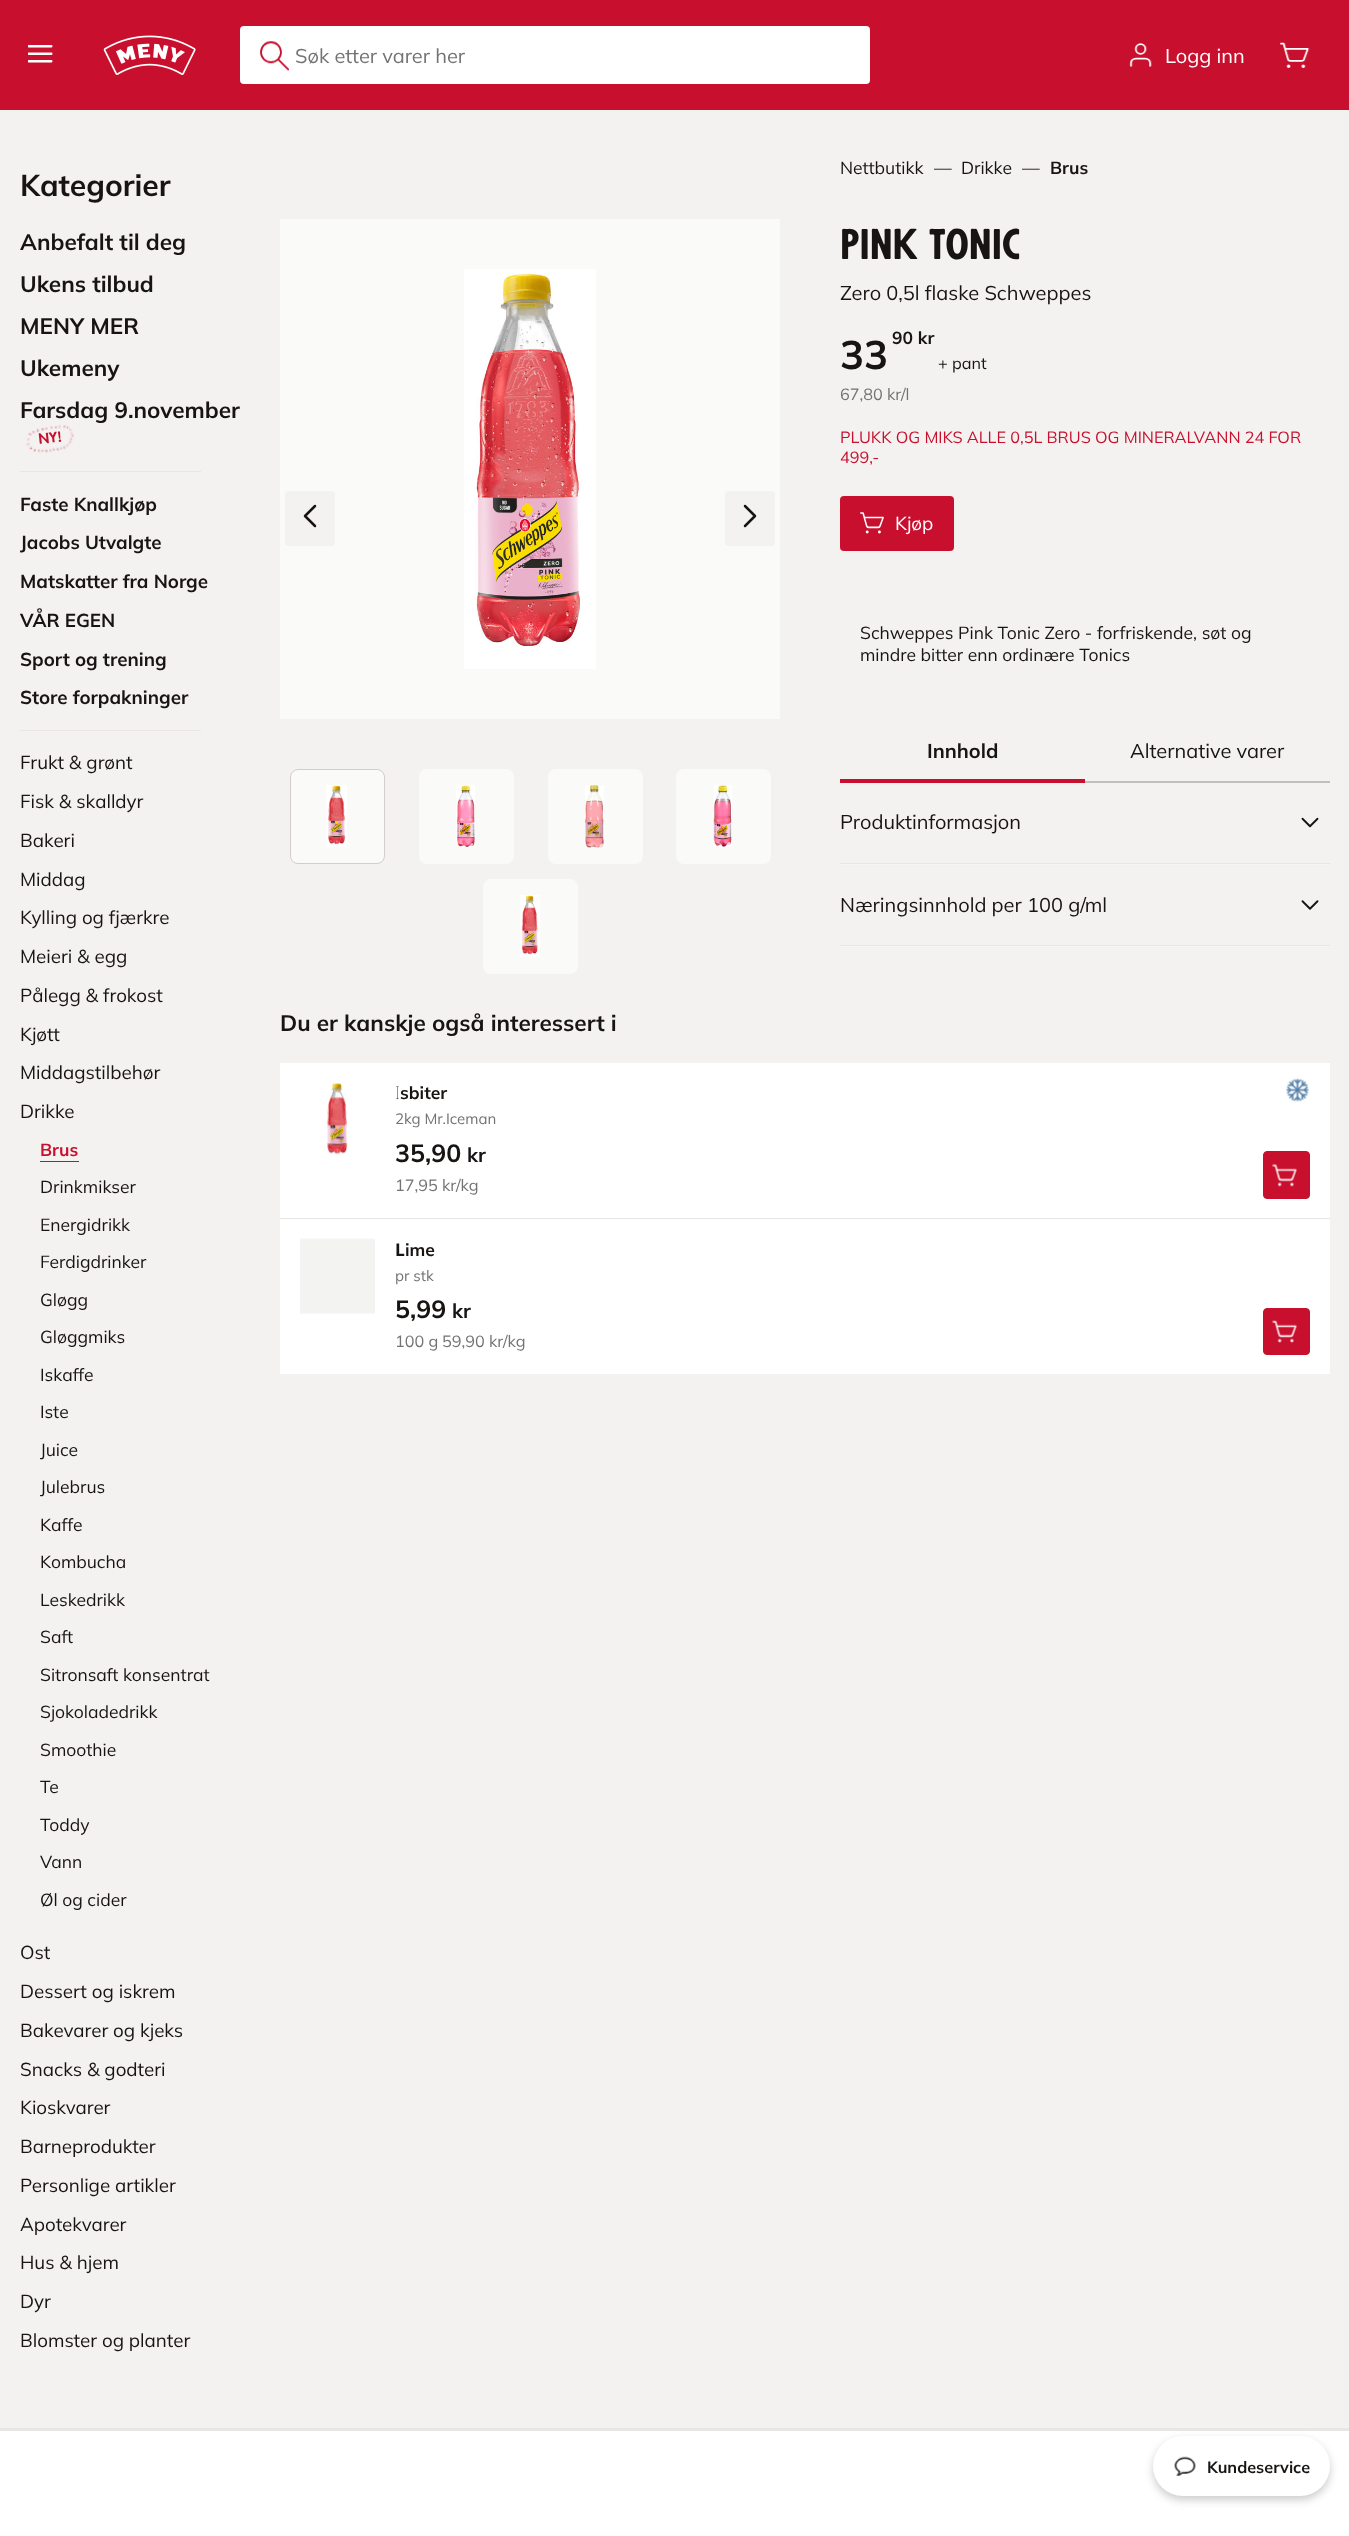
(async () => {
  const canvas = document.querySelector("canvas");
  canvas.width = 1349;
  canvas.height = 2536;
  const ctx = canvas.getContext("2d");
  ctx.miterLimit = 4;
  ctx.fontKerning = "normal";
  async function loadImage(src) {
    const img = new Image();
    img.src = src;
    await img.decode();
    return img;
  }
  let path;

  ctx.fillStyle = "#f4f2f1";
  ctx.fillRect(0, 0, 1349, 2536);
  ctx.fillStyle = "#c8102e";
  ctx.fillRect(0, 0, 1349, 110);
  ctx.drawImage(await loadImage("img/1.png"), 28, 45, 25, 18);
  ctx.drawImage(await loadImage("img/2.png"), 103, 35, 93, 40);
  ctx.fillStyle = "#ffffff";
  ctx.beginPath();
  ctx.roundRect(240, 26, 630, 58, 4);
  ctx.fill();
  ctx.drawImage(await loadImage("img/3.png"), 260, 41, 29, 30);
  ctx.drawImage(await loadImage("img/4.png"), 1129, 43, 23, 24);
  ctx.drawImage(await loadImage("img/5.png"), 1279, 42, 31, 26);
  ctx.drawImage(await loadImage("img/6.png"), 26, 425, 48, 28);
  for (const [x, y, w, h, color] of [
    [20, 471, 181, 1, "#e8e5e3"],
    [20, 730, 181, 1, "#e8e5e3"],
    [40, 1161, 39, 1, "#c8102e"],
    [280, 219, 500, 500, "#fafaf9"],
  ]) {
    ctx.fillStyle = color;
    ctx.fillRect(x, y, w, h);
  }
  ctx.drawImage(await loadImage("img/7.png"), 464, 269, 132, 400);
  ctx.fillStyle = "#f4f2f1";
  ctx.beginPath();
  ctx.roundRect(285, 491, 50, 55, 4);
  ctx.fill();
  path = new Path2D("M315 526L305 516L315 506");
  ctx.strokeStyle = "#171412";
  ctx.lineWidth = 2.5;
  ctx.lineCap = "round";
  ctx.lineJoin = "round";
  ctx.stroke(path);
  ctx.beginPath();
  ctx.roundRect(725, 491, 50, 55, 4);
  ctx.fill();
  path = new Path2D("M745 526L755 516L745 506");
  ctx.stroke(path);
  ctx.fillStyle = "#fafaf9";
  ctx.beginPath();
  ctx.roundRect(290.5, 769.5, 94, 94, 7.5);
  ctx.fill();
  ctx.strokeStyle = "#d3cec9";
  ctx.lineWidth = 1;
  ctx.lineJoin = "miter";
  ctx.stroke();
  ctx.drawImage(await loadImage("img/8.png"), 326, 785, 21, 62);
  ctx.beginPath();
  ctx.roundRect(419, 769, 95, 95, 8);
  ctx.fill();
  ctx.drawImage(await loadImage("img/9.png"), 456, 785, 19, 62);
  ctx.beginPath();
  ctx.roundRect(548, 769, 95, 95, 8);
  ctx.fill();
  ctx.drawImage(await loadImage("img/10.png"), 585, 785, 19, 63);
  ctx.beginPath();
  ctx.roundRect(676, 769, 95, 95, 8);
  ctx.fill();
  ctx.drawImage(await loadImage("img/11.png"), 713, 785, 19, 62);
  ctx.beginPath();
  ctx.roundRect(483, 879, 95, 95, 8);
  ctx.fill();
  ctx.drawImage(await loadImage("img/12.png"), 520, 895, 20, 62);
  ctx.fillStyle = "#c8102e";
  ctx.beginPath();
  ctx.roundRect(840, 496, 114, 55, 4);
  ctx.fill();
  ctx.drawImage(await loadImage("img/13.png"), 860, 512, 24, 22);
  for (const [x, y, w, h, color] of [
    [1085, 781, 245, 2, "#bfbfbf"],
    [840, 779, 245, 4, "#c8102e"],
    [840, 864, 490, 1, "#f6f6f6"],
    [840, 863, 490, 1, "#e8e5e3"],
  ]) {
    ctx.fillStyle = color;
    ctx.fillRect(x, y, w, h);
  }
  ctx.drawImage(await loadImage("img/14.png"), 1301, 817, 18, 11);
  ctx.fillStyle = "#f6f6f6";
  ctx.fillRect(840, 946, 490, 1);
  ctx.fillStyle = "#e8e5e3";
  ctx.fillRect(840, 945, 490, 1);
  ctx.drawImage(await loadImage("img/15.png"), 1301, 900, 18, 10);
  ctx.fillStyle = "#ffffff";
  ctx.fillRect(280, 1063, 1050, 155);
  ctx.fillStyle = "#e8e5e3";
  ctx.fillRect(280, 1218, 1050, 1);
  ctx.drawImage(await loadImage("img/16.png"), 327, 1083, 21, 72);
  ctx.drawImage(await loadImage("img/17.png"), 1286, 1078, 23, 24);
  ctx.fillStyle = "#c8102e";
  ctx.beginPath();
  ctx.roundRect(1263.5, 1151.5, 46, 47, 3.5);
  ctx.fill();
  ctx.strokeStyle = "#c8102e";
  ctx.stroke();
  ctx.drawImage(await loadImage("img/18.png"), 1272, 1164, 25, 23);
  ctx.fillStyle = "#ffffff";
  ctx.fillRect(280, 1219, 1050, 155);
  ctx.drawImage(await loadImage("img/19.png"), 300, 1238, 75, 76);
  ctx.fillStyle = "#c8102e";
  ctx.beginPath();
  ctx.roundRect(1263.5, 1308.5, 46, 46, 3.5);
  ctx.fill();
  ctx.stroke();
  ctx.drawImage(await loadImage("img/20.png"), 1272, 1320, 25, 23);
  ctx.fillStyle = "#ffffff";
  ctx.fillRect(0, 2431, 1349, 105);
  ctx.fillStyle = "#e6e6e6";
  ctx.fillRect(0, 2428, 1349, 3);
  ctx.fillStyle = "rgba(0, 0, 0, 0.2)";
  ctx.filter = "blur(4.5px)";
  ctx.beginPath();
  ctx.roundRect(1153, 2440, 177, 60, 30);
  ctx.fill();
  ctx.filter = "none";
  ctx.fillStyle = "#ffffff";
  ctx.beginPath();
  ctx.roundRect(1153, 2436, 177, 60, 30);
  ctx.fill();
  ctx.drawImage(await loadImage("img/21.png"), 1174, 2456, 22, 20);
  ctx.font = "200 20px 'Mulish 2'";
  ctx.fillStyle = "#737373";
  ctx.fillText("Søk etter varer her", 295, 63);
  ctx.fillStyle = "#ffffff";
  ctx.fillText("Logg inn", 1165, 63);
  ctx.font = "200 30px Mulish";
  ctx.fillStyle = "#171412";
  ctx.fillText("Kategorier", 20, 196);
  ctx.font = "200 22.5px Mulish";
  for (const [text, x, y] of [
    ["Anbefalt til deg", 20, 250],
    ["Ukens tilbud", 20, 292],
    ["MENY MER", 20, 334],
    ["Ukemeny", 20, 376],
    ["Farsdag 9.november", 20, 418],
  ]) {
    ctx.fillText(text, x, y);
  }
  ctx.font = "200 18.75px Mulish";
  for (const [text, x, y] of [
    ["Faste Knallkjøp", 20, 511],
    ["Jacobs Utvalgte", 20, 549],
    ["Matskatter fra Norge", 20, 588],
    ["VÅR EGEN", 20, 627],
    ["Sport og trening", 20, 666],
    ["Store forpakninger", 20, 704],
  ]) {
    ctx.fillText(text, x, y);
  }
  ctx.font = "200 18.75px 'Mulish 2'";
  for (const [text, x, y] of [
    ["Frukt & grønt", 20, 769],
    ["Fisk & skalldyr", 20, 808],
    ["Bakeri", 20, 847],
    ["Middag", 20, 886],
    ["Kylling og fjærkre", 20, 924],
    ["Meieri & egg", 20, 963],
    ["Pålegg & frokost", 20, 1002],
    ["Kjøtt", 20, 1041],
    ["Middagstilbehør", 20, 1079],
    ["Drikke", 20, 1118],
  ]) {
    ctx.fillText(text, x, y);
  }
  ctx.font = "200 17.5px Mulish";
  ctx.fillStyle = "#c8102e";
  ctx.fillText("Brus", 40, 1156);
  ctx.font = "200 17.5px 'Mulish 2'";
  ctx.fillStyle = "#171412";
  for (const [text, x, y] of [
    ["Drinkmikser", 40, 1193],
    ["Energidrikk", 40, 1231],
    ["Ferdigdrinker", 40, 1268],
    ["Gløgg", 40, 1306],
    ["Gløggmiks", 40, 1343],
    ["Iskaffe", 40, 1381],
    ["Iste", 40, 1418],
    ["Juice", 40, 1456],
    ["Julebrus", 40, 1493],
    ["Kaffe", 40, 1531],
    ["Kombucha", 40, 1568],
    ["Leskedrikk", 40, 1606],
    ["Saft", 40, 1643],
    ["Sitronsaft konsentrat", 40, 1681],
    ["Sjokoladedrikk", 40, 1718],
    ["Smoothie", 40, 1756],
    ["Te", 40, 1793],
    ["Toddy", 40, 1831],
    ["Vann", 40, 1868],
    ["Øl og cider", 40, 1906],
  ]) {
    ctx.fillText(text, x, y);
  }
  ctx.font = "200 18.75px 'Mulish 2'";
  for (const [text, x, y] of [
    ["Ost", 20, 1959],
    ["Dessert og iskrem", 20, 1998],
    ["Bakevarer og kjeks", 20, 2037],
    ["Snacks & godteri", 20, 2076],
    ["Kioskvarer", 20, 2114],
    ["Barneprodukter", 20, 2153],
    ["Personlige artikler", 20, 2192],
    ["Apotekvarer", 20, 2231],
    ["Hus & hjem", 20, 2269],
    ["Dyr", 20, 2308],
    ["Blomster og planter", 20, 2347],
  ]) {
    ctx.fillText(text, x, y);
  }
  ctx.font = "200 17.5px 'Mulish 2'";
  for (const [text, x, y] of [
    ["Nettbutikk", 840, 174],
    ["—", 934, 174],
    ["Drikke", 961, 174],
    ["—", 1022, 174],
  ]) {
    ctx.fillText(text, x, y);
  }
  ctx.font = "200 17.5px Mulish";
  ctx.fillText("Brus", 1050, 174);
  ctx.font = "bold 40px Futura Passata";
  ctx.fillText("Pink Tonic", 840, 259);
  ctx.font = "200 20px 'Mulish 2'";
  ctx.fillText("Zero 0,5l flaske Schweppes", 840, 300);
  ctx.font = "200 17.5px Mulish";
  ctx.fillText("90 kr", 892, 344);
  ctx.font = "200 40px Mulish";
  ctx.fillText("33", 840, 369);
  ctx.font = "200 16.25px 'Mulish 2'";
  ctx.fillText("+ pant", 938, 369);
  ctx.fillStyle = "#737373";
  ctx.fillText("67,80 kr/l", 840, 400);
  ctx.fillStyle = "#c8102e";
  ctx.fillText("PLUKK OG MIKS ALLE 0,5L BRUS OG MINERALVANN 24 FOR", 840, 443);
  ctx.fillText("499,-", 840, 463);
  ctx.font = "200 18.75px 'Mulish 2'";
  ctx.fillStyle = "#ffffff";
  ctx.fillText("Kjøp", 895, 530);
  ctx.font = "200 17.5px 'Mulish 2'";
  ctx.fillStyle = "#171412";
  ctx.fillText("Schweppes Pink Tonic Zero - forfriskende, søt og", 860, 639);
  ctx.fillText("mindre bitter enn ordinære Tonics", 860, 661);
  ctx.font = "200 20px Mulish";
  ctx.fillText("Innhold", 927, 758);
  ctx.font = "200 20px 'Mulish 2'";
  for (const [text, x, y] of [
    ["Alternative varer", 1130, 758],
    ["Produktinformasjon", 840, 829],
    ["Næringsinnhold per 100 g/ml", 840, 912],
  ]) {
    ctx.fillText(text, x, y);
  }
  ctx.font = "200 22.5px Mulish";
  ctx.fillText("Du er kanskje også interessert i", 280, 1031);
  ctx.font = "100 17.5px Noto Sans";
  ctx.fillText("I", 395, 1099);
  ctx.font = "200 17.5px Mulish";
  ctx.fillText("sbiter", 400, 1099);
  ctx.font = "200 15px 'Mulish 2'";
  ctx.fillStyle = "#737373";
  ctx.fillText("2kg Mr.Iceman", 395, 1124);
  ctx.font = "200 25px Mulish";
  ctx.fillStyle = "#171412";
  ctx.fillText("35,90", 395, 1162);
  ctx.font = "200 20px Mulish";
  ctx.fillText("kr", 467, 1162);
  ctx.font = "200 16.25px 'Mulish 2'";
  ctx.fillStyle = "#737373";
  ctx.fillText("17,95 kr/kg", 395, 1191);
  ctx.font = "bold 17.5px Noto Sans";
  ctx.fillStyle = "#171412";
  ctx.fillText("L", 395, 1256);
  ctx.font = "200 17.5px Mulish";
  ctx.fillText("ime", 405, 1256);
  ctx.font = "200 15px 'Mulish 2'";
  ctx.fillStyle = "#737373";
  ctx.fillText("pr stk", 395, 1281);
  ctx.font = "200 25px Mulish";
  ctx.fillStyle = "#171412";
  ctx.fillText("5,99", 395, 1318);
  ctx.font = "200 20px Mulish";
  ctx.fillText("kr", 452, 1318);
  ctx.font = "200 16.25px 'Mulish 2'";
  ctx.fillStyle = "#737373";
  ctx.fillText("100 g", 395, 1347);
  ctx.fillText("59,90 kr/kg", 442, 1347);
  ctx.font = "200 16.25px Mulish";
  ctx.fillStyle = "#171412";
  ctx.fillText("Kundeservice", 1207, 2473);
})();
